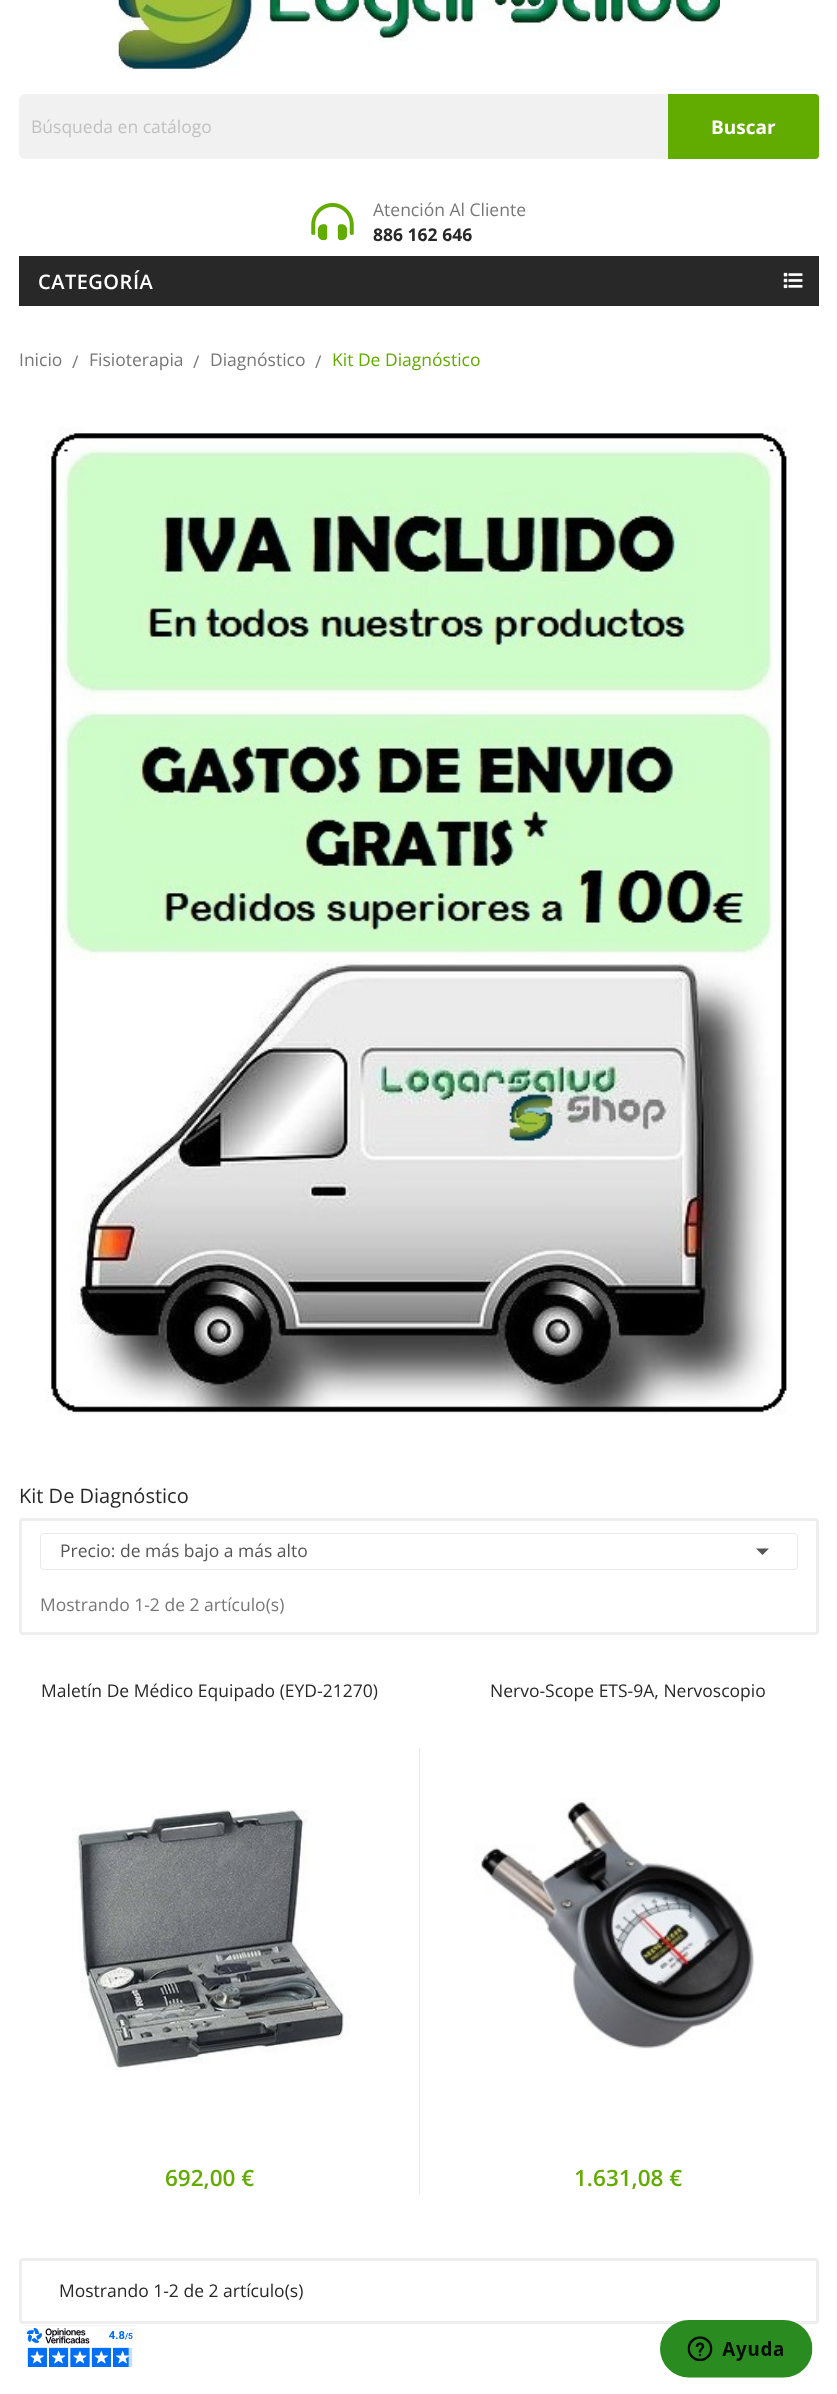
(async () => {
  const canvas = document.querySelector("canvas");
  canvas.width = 837;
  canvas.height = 2394;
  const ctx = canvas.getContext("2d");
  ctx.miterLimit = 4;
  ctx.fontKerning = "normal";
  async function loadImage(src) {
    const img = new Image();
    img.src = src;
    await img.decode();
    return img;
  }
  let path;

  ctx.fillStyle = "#ffffff";
  ctx.fillRect(0, 0, 837, 2394);
  ctx.drawImage(await loadImage("img/1.png"), 118, 0, 602, 69);
  ctx.fillStyle = "#f1f1f1";
  ctx.beginPath();
  ctx.roundRect(19, 94, 800, 65, 6);
  ctx.fill();
  ctx.fillStyle = "#62ab00";
  ctx.beginPath();
  ctx.roundRect(668, 94, 151, 65, [0, 4, 4, 0]);
  ctx.fill();
  ctx.drawImage(await loadImage("img/2.png"), 311, 203, 43, 38);
  ctx.fillStyle = "#282828";
  ctx.fillRect(19, 256, 800, 50);
  ctx.drawImage(await loadImage("img/3.png"), 783, 272, 20, 17);
  ctx.drawImage(await loadImage("img/4.png"), 45, 427, 742, 988);
  ctx.beginPath();
  ctx.roundRect(20.5, 1519.5, 797, 114, 2.5);
  ctx.strokeStyle = "#eeeeee";
  ctx.lineWidth = 3;
  ctx.stroke();
  ctx.beginPath();
  ctx.roundRect(40.5, 1533.5, 757, 36, 3.5);
  ctx.strokeStyle = "#e9e9e9";
  ctx.lineWidth = 1;
  ctx.stroke();
  ctx.fillStyle = "#555555";
  path = new Path2D("M756 1548.5H769L762.5 1555Z");
  ctx.fill(path);
  ctx.drawImage(await loadImage("img/5.png"), 72, 1809, 278, 261);
  ctx.fillStyle = "#ebebeb";
  ctx.fillRect(419, 1748, 1, 447);
  ctx.drawImage(await loadImage("img/6.png"), 474, 1798, 281, 251);
  ctx.beginPath();
  ctx.roundRect(20.5, 2259.5, 797, 63, 2.5);
  ctx.strokeStyle = "#eeeeee";
  ctx.lineWidth = 3;
  ctx.stroke();
  ctx.drawImage(await loadImage("img/7.png"), 24, 2325, 112, 42);
  ctx.drawImage(await loadImage("img/8.png"), 660, 2320, 153, 58);
  ctx.font = "17.5px Open Sans";
  ctx.fillStyle = "#c1c1c1";
  ctx.fillText("Búsqueda en catálogo", 31, 133);
  ctx.font = "bold 19px Open Sans";
  ctx.fillStyle = "#ffffff";
  ctx.fillText("Buscar", 711, 134);
  ctx.font = "17.5px Open Sans";
  ctx.fillStyle = "#777777";
  ctx.fillText("Atención Al Cliente", 373, 216);
  ctx.font = "bold 17.5px Open Sans";
  ctx.fillStyle = "#282828";
  ctx.fillText("886 162 646", 373, 241);
  ctx.letterSpacing = "0.5px";
  ctx.font = "600 20px Open Sans";
  ctx.fillStyle = "#ffffff";
  ctx.fillText("CATEGORÍA", 38, 289);
  ctx.letterSpacing = "0px";
  ctx.font = "17.5px Open Sans";
  ctx.fillStyle = "#777777";
  for (const [text, x, y] of [
    ["Inicio", 19, 366],
    ["/", 72, 368],
    ["Fisioterapia", 89, 366],
    ["/", 193, 368],
    ["Diagnóstico", 210, 366],
    ["/", 315, 368],
  ]) {
    ctx.fillText(text, x, y);
  }
  ctx.fillStyle = "#62ab00";
  ctx.fillText("Kit De Diagnóstico", 332, 366);
  ctx.font = "20px Open Sans";
  ctx.fillStyle = "#282828";
  ctx.fillText("Kit De Diagnóstico", 19, 1503);
  ctx.font = "17.5px Open Sans";
  ctx.fillStyle = "#555555";
  ctx.fillText("Precio: de más bajo a más alto", 60, 1557);
  ctx.fillStyle = "#777777";
  ctx.fillText("Mostrando 1-2 de 2 artículo(s)", 40, 1611);
  ctx.fillStyle = "#282828";
  ctx.fillText("Maletín De Médico Equipado (EYD-21270)", 41, 1697);
  ctx.font = "600 22.5px Open Sans";
  ctx.fillStyle = "#62ab00";
  ctx.fillText("692,00 €", 165, 2186);
  ctx.font = "17.5px Open Sans";
  ctx.fillStyle = "#282828";
  ctx.fillText("Nervo-Scope ETS-9A, Nervoscopio", 490, 1697);
  ctx.font = "600 22.5px Open Sans";
  ctx.fillStyle = "#62ab00";
  ctx.fillText("1.631,08 €", 574, 2186);
  ctx.font = "17.5px Open Sans";
  ctx.fillStyle = "#282828";
  ctx.fillText("Mostrando 1-2 de 2 artículo(s)", 59, 2297);
})();
